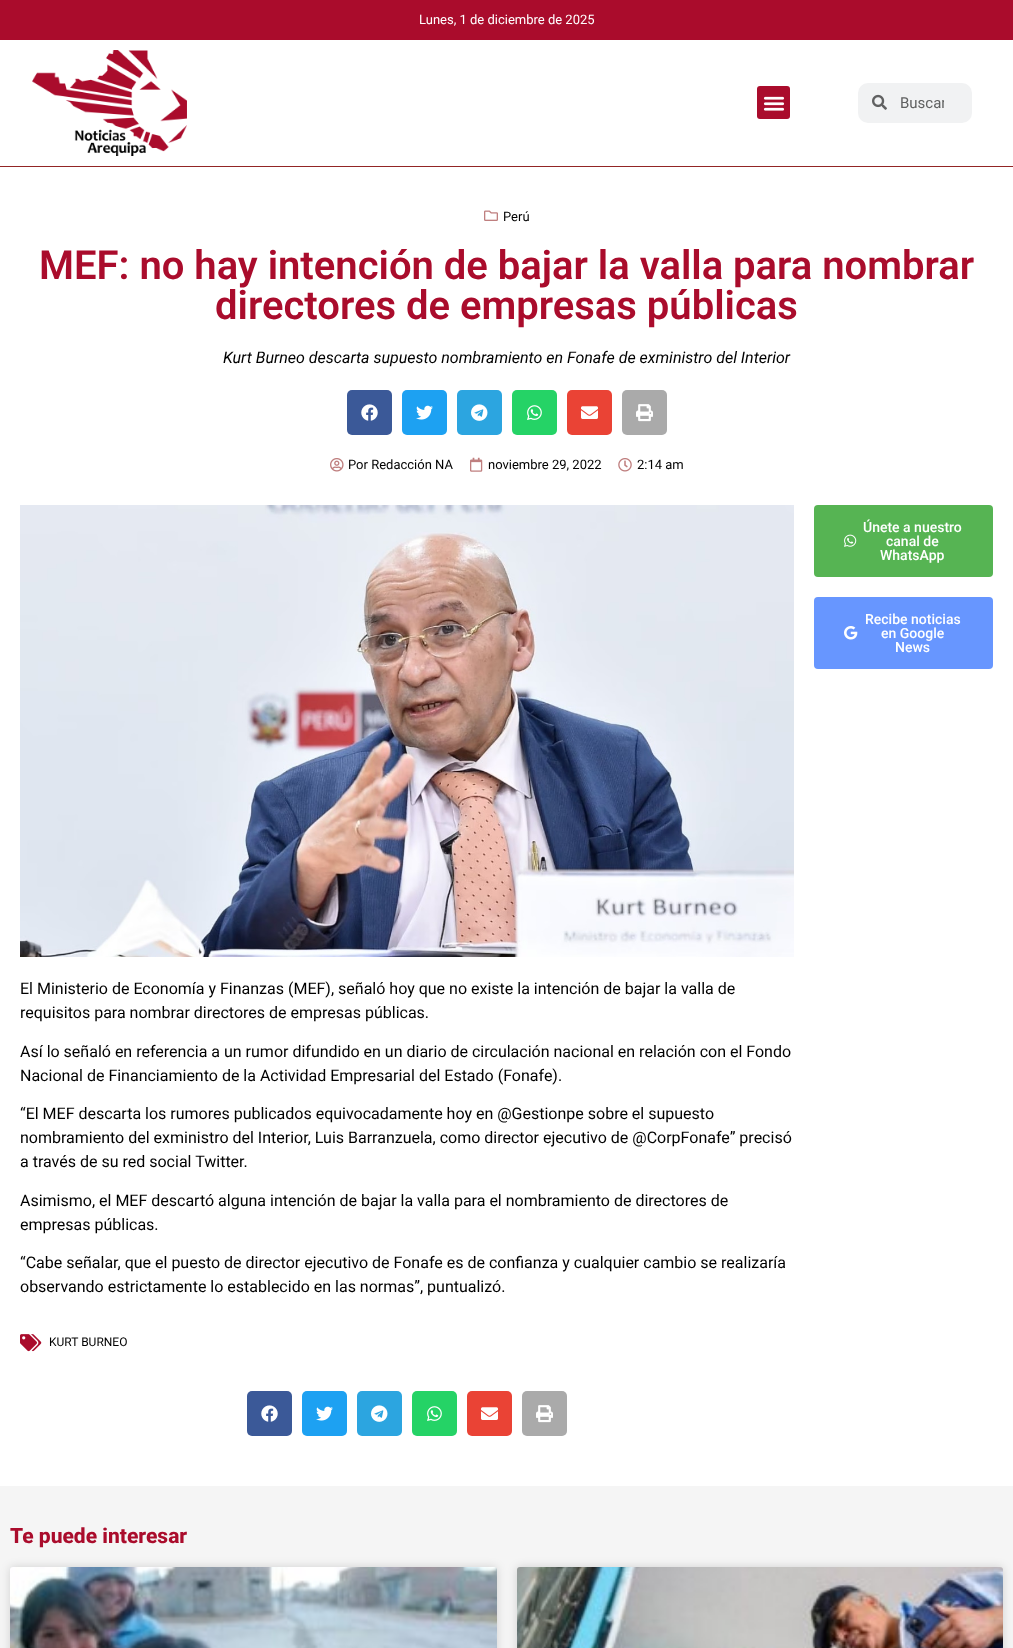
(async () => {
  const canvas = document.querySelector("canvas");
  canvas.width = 1013;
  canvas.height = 1648;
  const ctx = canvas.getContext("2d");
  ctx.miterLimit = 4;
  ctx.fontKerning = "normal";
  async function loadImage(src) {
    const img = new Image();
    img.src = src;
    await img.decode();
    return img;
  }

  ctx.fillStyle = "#ffffff";
  ctx.fillRect(0, 0, 1013, 1648);
  ctx.fillStyle = "#aa0c2c";
  ctx.fillRect(0, 0, 1013, 40);
  ctx.fillStyle = "#922525";
  ctx.fillRect(0, 166, 1013, 1);
  ctx.drawImage(await loadImage("img/1.png"), 32, 50, 155, 106);
  ctx.fillStyle = "#aa0c2c";
  ctx.beginPath();
  ctx.roundRect(757, 86, 33, 33, 3);
  ctx.fill();
  ctx.drawImage(await loadImage("img/2.png"), 763, 96, 22, 15);
  ctx.fillStyle = "#f1f2f3";
  ctx.beginPath();
  ctx.roundRect(858, 83, 114, 40, 10);
  ctx.fill();
  ctx.drawImage(await loadImage("img/3.png"), 872, 94, 15, 16);
  ctx.drawImage(await loadImage("img/4.png"), 484, 210, 14, 11);
  ctx.fillStyle = "#3b5998";
  ctx.beginPath();
  ctx.roundRect(347, 390, 45, 45, 5);
  ctx.fill();
  ctx.drawImage(await loadImage("img/5.png"), 361, 404, 17, 17);
  ctx.fillStyle = "#1da1f2";
  ctx.beginPath();
  ctx.roundRect(402, 390, 45, 45, 5);
  ctx.fill();
  ctx.drawImage(await loadImage("img/6.png"), 416, 405, 17, 15);
  ctx.fillStyle = "#2ca5e0";
  ctx.beginPath();
  ctx.roundRect(457, 390, 45, 45, 5);
  ctx.fill();
  ctx.drawImage(await loadImage("img/7.png"), 471, 404, 17, 17);
  ctx.fillStyle = "#25d366";
  ctx.beginPath();
  ctx.roundRect(512, 390, 45, 45, 5);
  ctx.fill();
  ctx.drawImage(await loadImage("img/8.png"), 527, 405, 15, 15);
  ctx.fillStyle = "#ea4335";
  ctx.beginPath();
  ctx.roundRect(567, 390, 45, 45, 5);
  ctx.fill();
  ctx.drawImage(await loadImage("img/9.png"), 581, 406, 17, 13);
  ctx.fillStyle = "#aaaaaa";
  ctx.beginPath();
  ctx.roundRect(622, 390, 45, 45, 5);
  ctx.fill();
  ctx.drawImage(await loadImage("img/10.png"), 636, 404, 17, 18);
  ctx.drawImage(await loadImage("img/11.png"), 330, 458, 14, 14);
  ctx.drawImage(await loadImage("img/12.png"), 470, 457, 13, 15);
  ctx.drawImage(await loadImage("img/13.png"), 618, 458, 14, 14);
  ctx.fillStyle = "#56b453";
  ctx.beginPath();
  ctx.roundRect(814, 505, 179, 72, 4);
  ctx.fill();
  ctx.drawImage(await loadImage("img/14.png"), 844, 534, 13, 13);
  ctx.fillStyle = "#6796ff";
  ctx.beginPath();
  ctx.roundRect(814, 597, 179, 72, 4);
  ctx.fill();
  ctx.drawImage(await loadImage("img/15.png"), 844, 626, 14, 14);
  ctx.drawImage(await loadImage("img/16.png"), 20, 505, 774, 452);
  ctx.drawImage(await loadImage("img/17.png"), 20, 1334, 22, 18);
  ctx.fillStyle = "#3b5998";
  ctx.beginPath();
  ctx.roundRect(247, 1391, 45, 45, 5);
  ctx.fill();
  ctx.drawImage(await loadImage("img/5.png"), 261, 1405, 17, 17);
  ctx.fillStyle = "#1da1f2";
  ctx.beginPath();
  ctx.roundRect(302, 1391, 45, 45, 5);
  ctx.fill();
  ctx.drawImage(await loadImage("img/6.png"), 316, 1406, 17, 15);
  ctx.fillStyle = "#2ca5e0";
  ctx.beginPath();
  ctx.roundRect(357, 1391, 45, 45, 5);
  ctx.fill();
  ctx.drawImage(await loadImage("img/7.png"), 371, 1405, 17, 17);
  ctx.fillStyle = "#25d366";
  ctx.beginPath();
  ctx.roundRect(412, 1391, 45, 45, 5);
  ctx.fill();
  ctx.drawImage(await loadImage("img/8.png"), 427, 1406, 15, 15);
  ctx.fillStyle = "#ea4335";
  ctx.beginPath();
  ctx.roundRect(467, 1391, 45, 45, 5);
  ctx.fill();
  ctx.drawImage(await loadImage("img/9.png"), 481, 1407, 17, 13);
  ctx.fillStyle = "#aaaaaa";
  ctx.beginPath();
  ctx.roundRect(522, 1391, 45, 45, 5);
  ctx.fill();
  ctx.drawImage(await loadImage("img/10.png"), 536, 1405, 17, 18);
  ctx.fillStyle = "#f5f5f5";
  ctx.fillRect(0, 1486, 1013, 162);
  ctx.fillStyle = "rgba(0, 0, 0, 0.15)";
  ctx.filter = "blur(5px)";
  ctx.beginPath();
  ctx.roundRect(10, 1567, 487, 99, 3);
  ctx.fill();
  ctx.filter = "none";
  ctx.drawImage(await loadImage("img/18.png"), 10, 1567, 487, 81);
  ctx.filter = "blur(5px)";
  ctx.beginPath();
  ctx.roundRect(517, 1567, 486, 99, 3);
  ctx.fill();
  ctx.filter = "none";
  ctx.drawImage(await loadImage("img/19.png"), 517, 1567, 486, 81);
  ctx.font = "13px Roboto";
  ctx.fillStyle = "#ffffff";
  ctx.fillText("Lunes, 1 de diciembre de 2025", 419, 24);
  ctx.save();
  ctx.beginPath();
  ctx.rect(900, 94, 44, 18);
  ctx.clip();
  ctx.font = "15px Roboto";
  ctx.fillStyle = "#606161";
  ctx.fillText("Buscar", 900, 108);
  ctx.restore();
  ctx.fillStyle = "#000000";
  ctx.fillText("Perú", 503, 221);
  ctx.font = "600 40px Roboto";
  ctx.fillStyle = "#aa0c2c";
  ctx.fillText("MEF: no hay intención de bajar la valla para nombrar", 39, 279);
  ctx.fillText("directores de empresas públicas", 215, 319);
  ctx.font = "italic 16px Roboto";
  ctx.fillStyle = "#000000";
  ctx.fillText("Kurt Burneo descarta supuesto nombramiento en Fonafe de exministro del Interior", 223, 363);
  ctx.font = "13px Roboto";
  for (const [text, x, y] of [
    ["Por Redacción NA", 348, 469],
    ["noviembre 29, 2022", 488, 469],
    ["2:14 am", 637, 469],
  ]) {
    ctx.fillText(text, x, y);
  }
  ctx.font = "500 14px Roboto";
  ctx.fillStyle = "#ffffff";
  for (const [text, x, y] of [
    ["Únete a nuestro", 863, 532],
    ["canal de", 886, 546],
    ["WhatsApp", 880, 560],
    ["Recibe noticias", 865, 624],
    ["en Google", 881, 638],
    ["News", 895, 652],
  ]) {
    ctx.fillText(text, x, y);
  }
  ctx.font = "16px Roboto";
  ctx.fillStyle = "#000000";
  for (const [text, x, y] of [
    ["El Ministerio de Economía y Finanzas (MEF), señaló hoy que no existe la intención de bajar la valla de", 20, 994],
    ["requisitos para nombrar directores de empresas públicas.", 20, 1018],
    ["Así lo señaló en referencia a un rumor difundido en un diario de circulación nacional en relación con el Fondo", 20, 1057],
    ["Nacional de Financiamiento de la Actividad Empresarial del Estado (Fonafe).", 20, 1081],
    ["“El MEF descarta los rumores publicados equivocadamente hoy en @Gestionpe sobre el supuesto", 20, 1119],
    ["nombramiento del exministro del Interior, Luis Barranzuela, como director ejecutivo de @CorpFonafe” precisó", 20, 1143],
    ["a través de su red social Twitter.", 20, 1167],
    ["Asimismo, el MEF descartó alguna intención de bajar la valla para el nombramiento de directores de", 20, 1206],
    ["empresas públicas.", 20, 1230],
    ["“Cabe señalar, que el puesto de director ejecutivo de Fonafe es de confianza y cualquier cambio se realizaría", 20, 1268],
    ["observando estrictamente lo establecido en las normas”, puntualizó.", 20, 1292],
  ]) {
    ctx.fillText(text, x, y);
  }
  ctx.font = "12px Roboto";
  ctx.fillText("KURT BURNEO", 49, 1346);
  ctx.font = "800 21px Roboto";
  ctx.fillStyle = "#aa0c2c";
  ctx.fillText("Te puede interesar", 10, 1543);
})();
